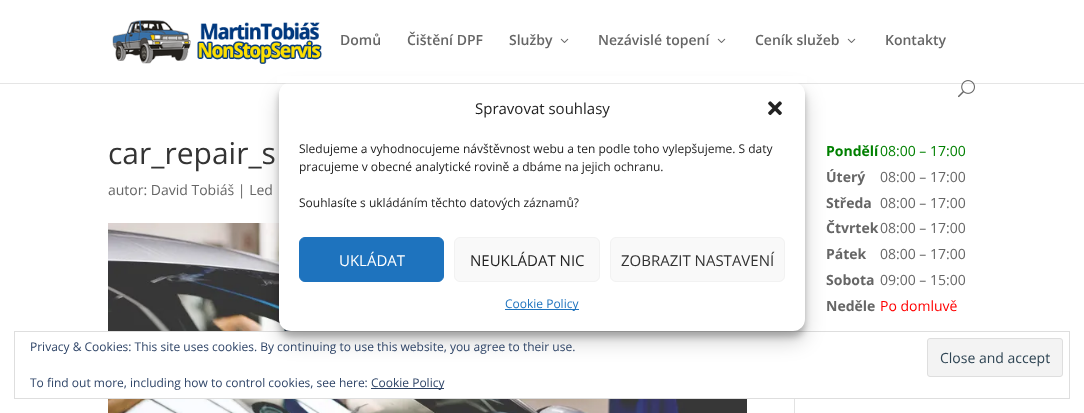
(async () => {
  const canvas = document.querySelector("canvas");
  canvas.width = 1084;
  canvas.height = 413;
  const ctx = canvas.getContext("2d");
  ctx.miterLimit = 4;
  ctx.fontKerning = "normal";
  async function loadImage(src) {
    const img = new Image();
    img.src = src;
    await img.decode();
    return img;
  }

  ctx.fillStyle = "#ffffff";
  ctx.fillRect(0, 0, 1084, 413);
  ctx.drawImage(await loadImage("img/4.png"), 108, 223, 639, 190);
  ctx.fillStyle = "#e2e2e2";
  ctx.fillRect(794, 330, 1, 83);
  ctx.fillStyle = "#ffffff";
  ctx.fillRect(108, 332, 687, 66);
  ctx.strokeStyle = "#dedede";
  ctx.strokeRect(14.5, 331.5, 1055, 67);
  ctx.fillStyle = "rgba(0, 0, 0, 0.23)";
  ctx.filter = "blur(3px)";
  ctx.beginPath();
  ctx.roundRect(279, 88, 526, 249, 12);
  ctx.fill();
  ctx.filter = "none";
  ctx.fillStyle = "rgba(0, 0, 0, 0.19)";
  ctx.filter = "blur(10px)";
  ctx.beginPath();
  ctx.roundRect(279, 92, 526, 249, 12);
  ctx.fill();
  ctx.filter = "none";
  ctx.fillStyle = "#ffffff";
  ctx.beginPath();
  ctx.roundRect(279, 82, 526, 249, 12);
  ctx.fill();
  ctx.fillStyle = "rgba(0, 0, 0, 0.1)";
  ctx.fillRect(0, 83, 1084, 1);
  ctx.fillStyle = "#ffffff";
  ctx.fillRect(277, 76, 530, 7);
  ctx.drawImage(await loadImage("img/1.png"), 112, 20, 210, 44);
  ctx.drawImage(await loadImage("img/2.png"), 560, 38, 9, 5);
  ctx.drawImage(await loadImage("img/2.png"), 717, 38, 9, 5);
  ctx.drawImage(await loadImage("img/2.png"), 847, 38, 9, 5);
  ctx.drawImage(await loadImage("img/3.png"), 958, 80, 17, 18);
  ctx.drawImage(await loadImage("img/5.png"), 768, 101, 14, 15);
  ctx.fillStyle = "#1e73be";
  ctx.beginPath();
  ctx.roundRect(299.5, 237.5, 144, 44, 5.5);
  ctx.fill();
  ctx.strokeStyle = "#1e73be";
  ctx.stroke();
  ctx.fillStyle = "#f9f9f9";
  ctx.beginPath();
  ctx.roundRect(454.5, 237.5, 145, 44, 5.5);
  ctx.fill();
  ctx.strokeStyle = "#f2f2f2";
  ctx.stroke();
  ctx.beginPath();
  ctx.roundRect(610.5, 237.5, 174, 44, 5.5);
  ctx.fill();
  ctx.stroke();
  ctx.fillStyle = "#1e73be";
  ctx.fillRect(505, 309, 74, 1);
  ctx.fillStyle = "#f3f3f3";
  ctx.beginPath();
  ctx.roundRect(927.5, 338.5, 135, 38, 2.5);
  ctx.fill();
  ctx.strokeStyle = "#dedede";
  ctx.stroke();
  ctx.fillStyle = "#2e4467";
  ctx.fillRect(371, 388, 73, 1);
  ctx.font = "600 14px Open Sans";
  ctx.fillStyle = "#666666";
  for (const [text, x, y] of [
    ["Domů", 340, 45],
    ["Čištění DPF", 407, 45],
    ["Služby", 509, 45],
    ["Nezávislé topení", 598, 45],
    ["Ceník služeb", 755, 45],
    ["Kontakty", 885, 45],
  ]) {
    ctx.fillText(text, x, y);
  }
  ctx.font = "30px Open Sans";
  ctx.fillStyle = "#333333";
  ctx.fillText("car_repair_s", 108, 164);
  ctx.font = "14px Open Sans";
  ctx.fillStyle = "#666666";
  ctx.fillText("autor: David Tobiáš | Led", 108, 195);
  ctx.font = "bold 14px Open Sans";
  ctx.fillStyle = "#008000";
  ctx.fillText("Pondělí", 826, 156);
  ctx.font = "14px Open Sans";
  ctx.fillText("08:00 – 17:00", 880, 156);
  ctx.font = "bold 14px Open Sans";
  ctx.fillStyle = "#666666";
  ctx.fillText("Úterý", 826, 182);
  ctx.font = "14px Open Sans";
  ctx.fillText("08:00 – 17:00", 880, 182);
  ctx.font = "bold 14px Open Sans";
  ctx.fillText("Středa", 826, 208);
  ctx.font = "14px Open Sans";
  ctx.fillText("08:00 – 17:00", 880, 208);
  ctx.font = "bold 14px Open Sans";
  ctx.fillText("Čtvrtek", 826, 233);
  ctx.font = "14px Open Sans";
  ctx.fillText("08:00 – 17:00", 880, 233);
  ctx.font = "bold 14px Open Sans";
  ctx.fillText("Pátek", 826, 259);
  ctx.font = "14px Open Sans";
  ctx.fillText("08:00 – 17:00", 880, 259);
  ctx.font = "bold 14px Open Sans";
  ctx.fillText("Sobota", 826, 285);
  ctx.font = "14px Open Sans";
  ctx.fillText("09:00 – 15:00", 880, 285);
  ctx.font = "bold 14px Open Sans";
  ctx.fillText("Neděle", 826, 311);
  ctx.font = "14px Open Sans";
  ctx.fillStyle = "#ff0000";
  ctx.fillText("Po domluvě", 880, 311);
  ctx.font = "15px Open Sans";
  ctx.fillStyle = "#222222";
  ctx.fillText("Spravovat souhlasy", 475, 114);
  ctx.font = "12px Open Sans";
  for (const [text, x, y] of [
    ["Sledujeme a vyhodnocujeme návštěvnost webu a ten podle toho vylepšujeme. S daty", 299, 153],
    ["pracujeme v obecné analytické rovině a dbáme na jejich ochranu.", 299, 171],
    ["Souhlasíte s ukládáním těchto datových záznamů?", 299, 207],
  ]) {
    ctx.fillText(text, x, y);
  }
  ctx.font = "15px Open Sans";
  ctx.fillStyle = "#ffffff";
  ctx.fillText("UKLÁDAT", 339, 266);
  ctx.fillStyle = "#222222";
  ctx.fillText("NEUKLÁDAT NIC", 470, 266);
  ctx.fillStyle = "#333333";
  ctx.fillText("ZOBRAZIT NASTAVENÍ", 621, 266);
  ctx.font = "12px Open Sans";
  ctx.fillStyle = "#1e73be";
  ctx.fillText("Cookie Policy", 505, 308);
  ctx.fillStyle = "#2e4467";
  ctx.fillText("Privacy & Cookies: This site uses cookies. By continuing to use this website, you agree to their use.", 30, 351);
  ctx.font = "14px Open Sans";
  ctx.fillStyle = "#2e4453";
  ctx.fillText("Close and accept", 940, 363);
  ctx.font = "12px Open Sans";
  ctx.fillStyle = "#2e4467";
  ctx.fillText("To find out more, including how to control cookies, see here:", 30, 387);
  ctx.fillText("Cookie Policy", 371, 387);
})();
